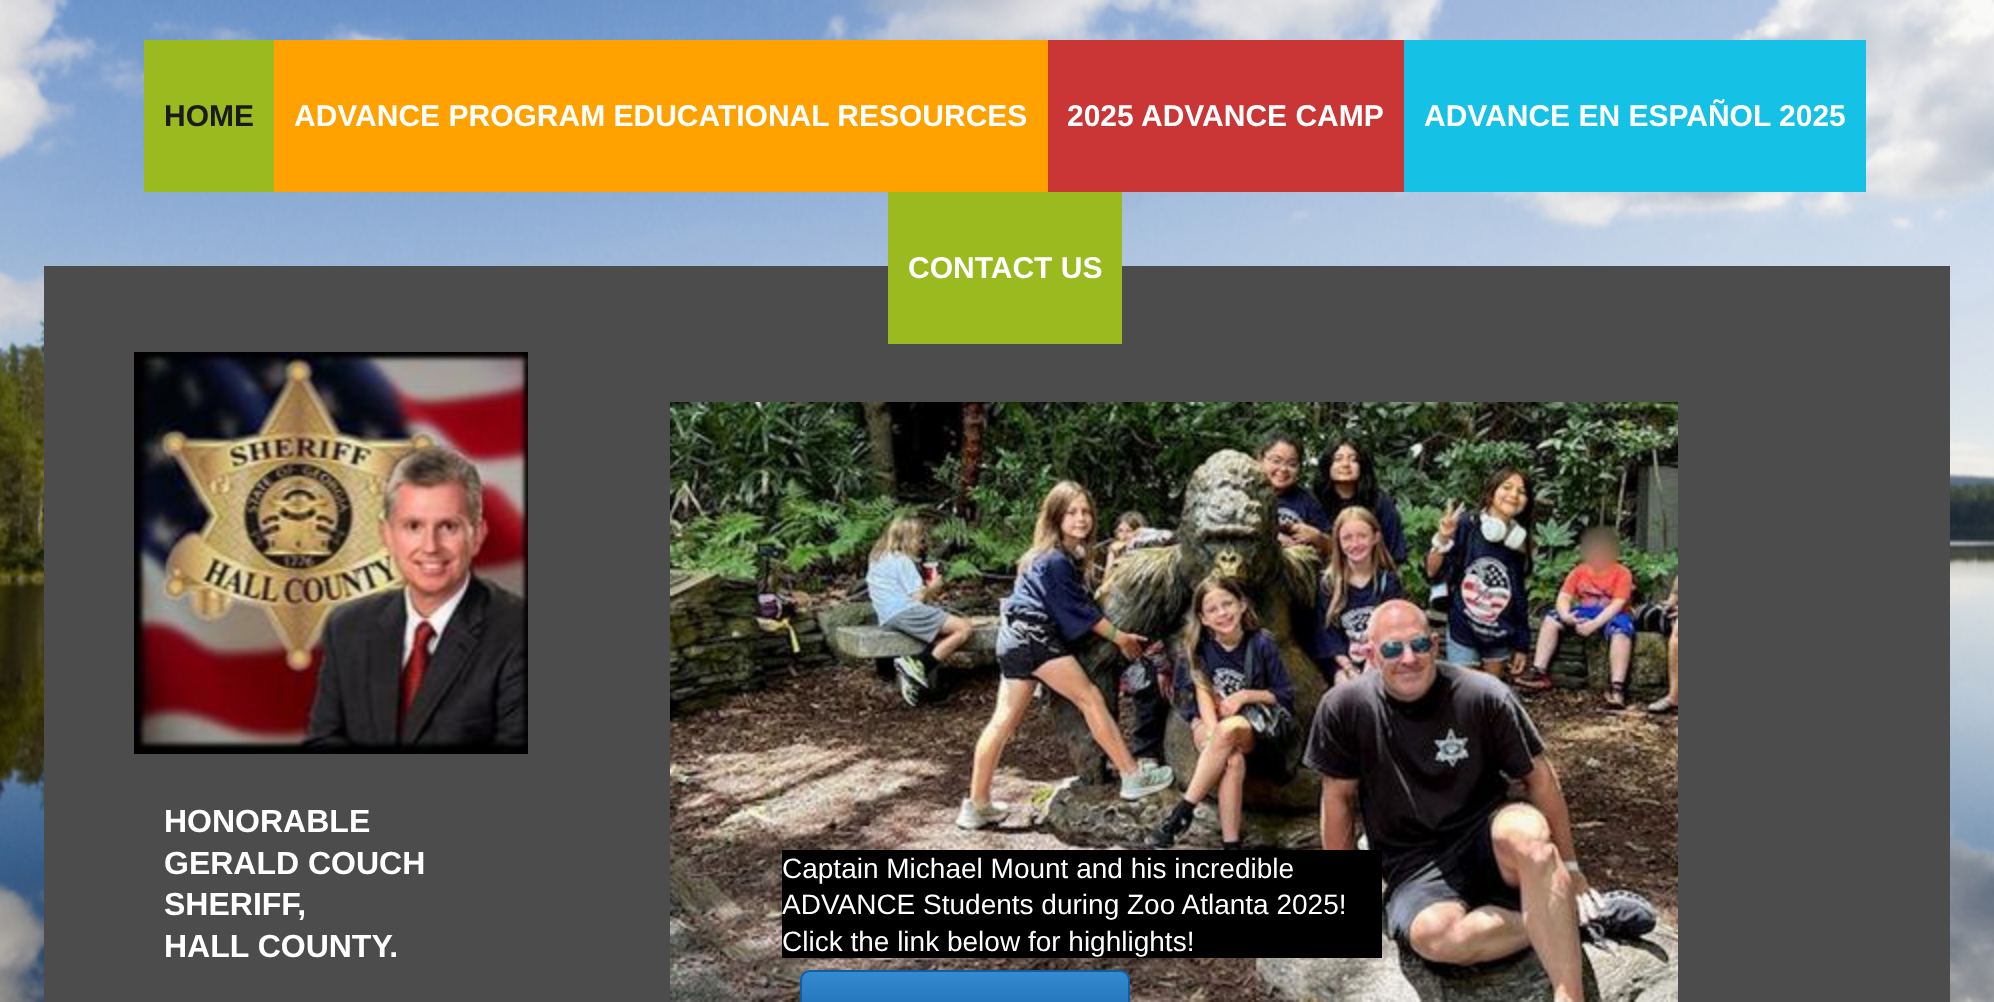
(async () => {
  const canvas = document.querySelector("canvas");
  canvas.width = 1994;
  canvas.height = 1002;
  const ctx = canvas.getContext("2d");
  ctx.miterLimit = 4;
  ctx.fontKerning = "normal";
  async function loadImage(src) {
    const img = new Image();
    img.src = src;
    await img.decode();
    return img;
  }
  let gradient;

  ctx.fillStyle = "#ffffff";
  ctx.fillRect(0, 0, 1994, 1002);
  ctx.drawImage(await loadImage("img/1.png"), 0, 0, 1994, 1002);
  for (const [x, y, w, h, color] of [
    [44, 266, 1906, 736, "#4c4c4c"],
    [144, 40, 130, 152, "#9bba1f"],
    [274, 40, 774, 152, "#ffa200"],
    [1048, 40, 356, 152, "#ca3535"],
    [1404, 40, 462, 152, "#15c1e5"],
    [888, 192, 234, 152, "#9bba1f"],
  ]) {
    ctx.fillStyle = color;
    ctx.fillRect(x, y, w, h);
  }
  ctx.drawImage(await loadImage("img/2.png"), 134, 352, 394, 402);
  ctx.drawImage(await loadImage("img/3.png"), 670, 402, 1008, 600);
  ctx.fillStyle = "#000000";
  ctx.fillRect(782, 850, 600, 108);
  ctx.save();
  ctx.beginPath();
  ctx.roundRect(800, 970, 330, 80, 10);
  ctx.clip();
  gradient = ctx.createLinearGradient(965, 972, 965, 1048);
  gradient.addColorStop(0, "#348bcf");
  gradient.addColorStop(1, "#125ca6");
  ctx.fillStyle = gradient;
  ctx.fillRect(800, 972, 330, 30);
  ctx.restore();
  ctx.beginPath();
  ctx.roundRect(801, 971, 328, 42, 9);
  ctx.strokeStyle = "#125ca6";
  ctx.lineWidth = 2;
  ctx.stroke();
  ctx.font = "bold 30px Liberation Sans";
  ctx.fillStyle = "#1a1a1a";
  ctx.fillText("HOME", 164, 126);
  ctx.fillStyle = "#ffffff";
  for (const [text, x, y] of [
    ["ADVANCE PROGRAM EDUCATIONAL RESOURCES", 294, 126],
    ["2025 ADVANCE CAMP", 1067, 126],
    ["ADVANCE EN ESPAÑOL 2025", 1424, 126],
    ["CONTACT US", 908, 278],
  ]) {
    ctx.fillText(text, x, y);
  }
  ctx.font = "bold 32px Liberation Sans";
  for (const [text, x, y] of [
    ["HONORABLE", 164, 832],
    ["GERALD COUCH", 164, 874],
    ["SHERIFF,", 164, 915],
    ["HALL COUNTY.", 164, 957],
  ]) {
    ctx.fillText(text, x, y);
  }
  ctx.font = "28px Liberation Sans";
  for (const [text, x, y] of [
    ["Captain Michael Mount and his incredible", 782, 878],
    ["ADVANCE Students during Zoo Atlanta 2025!", 782, 914],
    ["Click the link below for highlights!", 782, 951],
  ]) {
    ctx.fillText(text, x, y);
  }
})();
